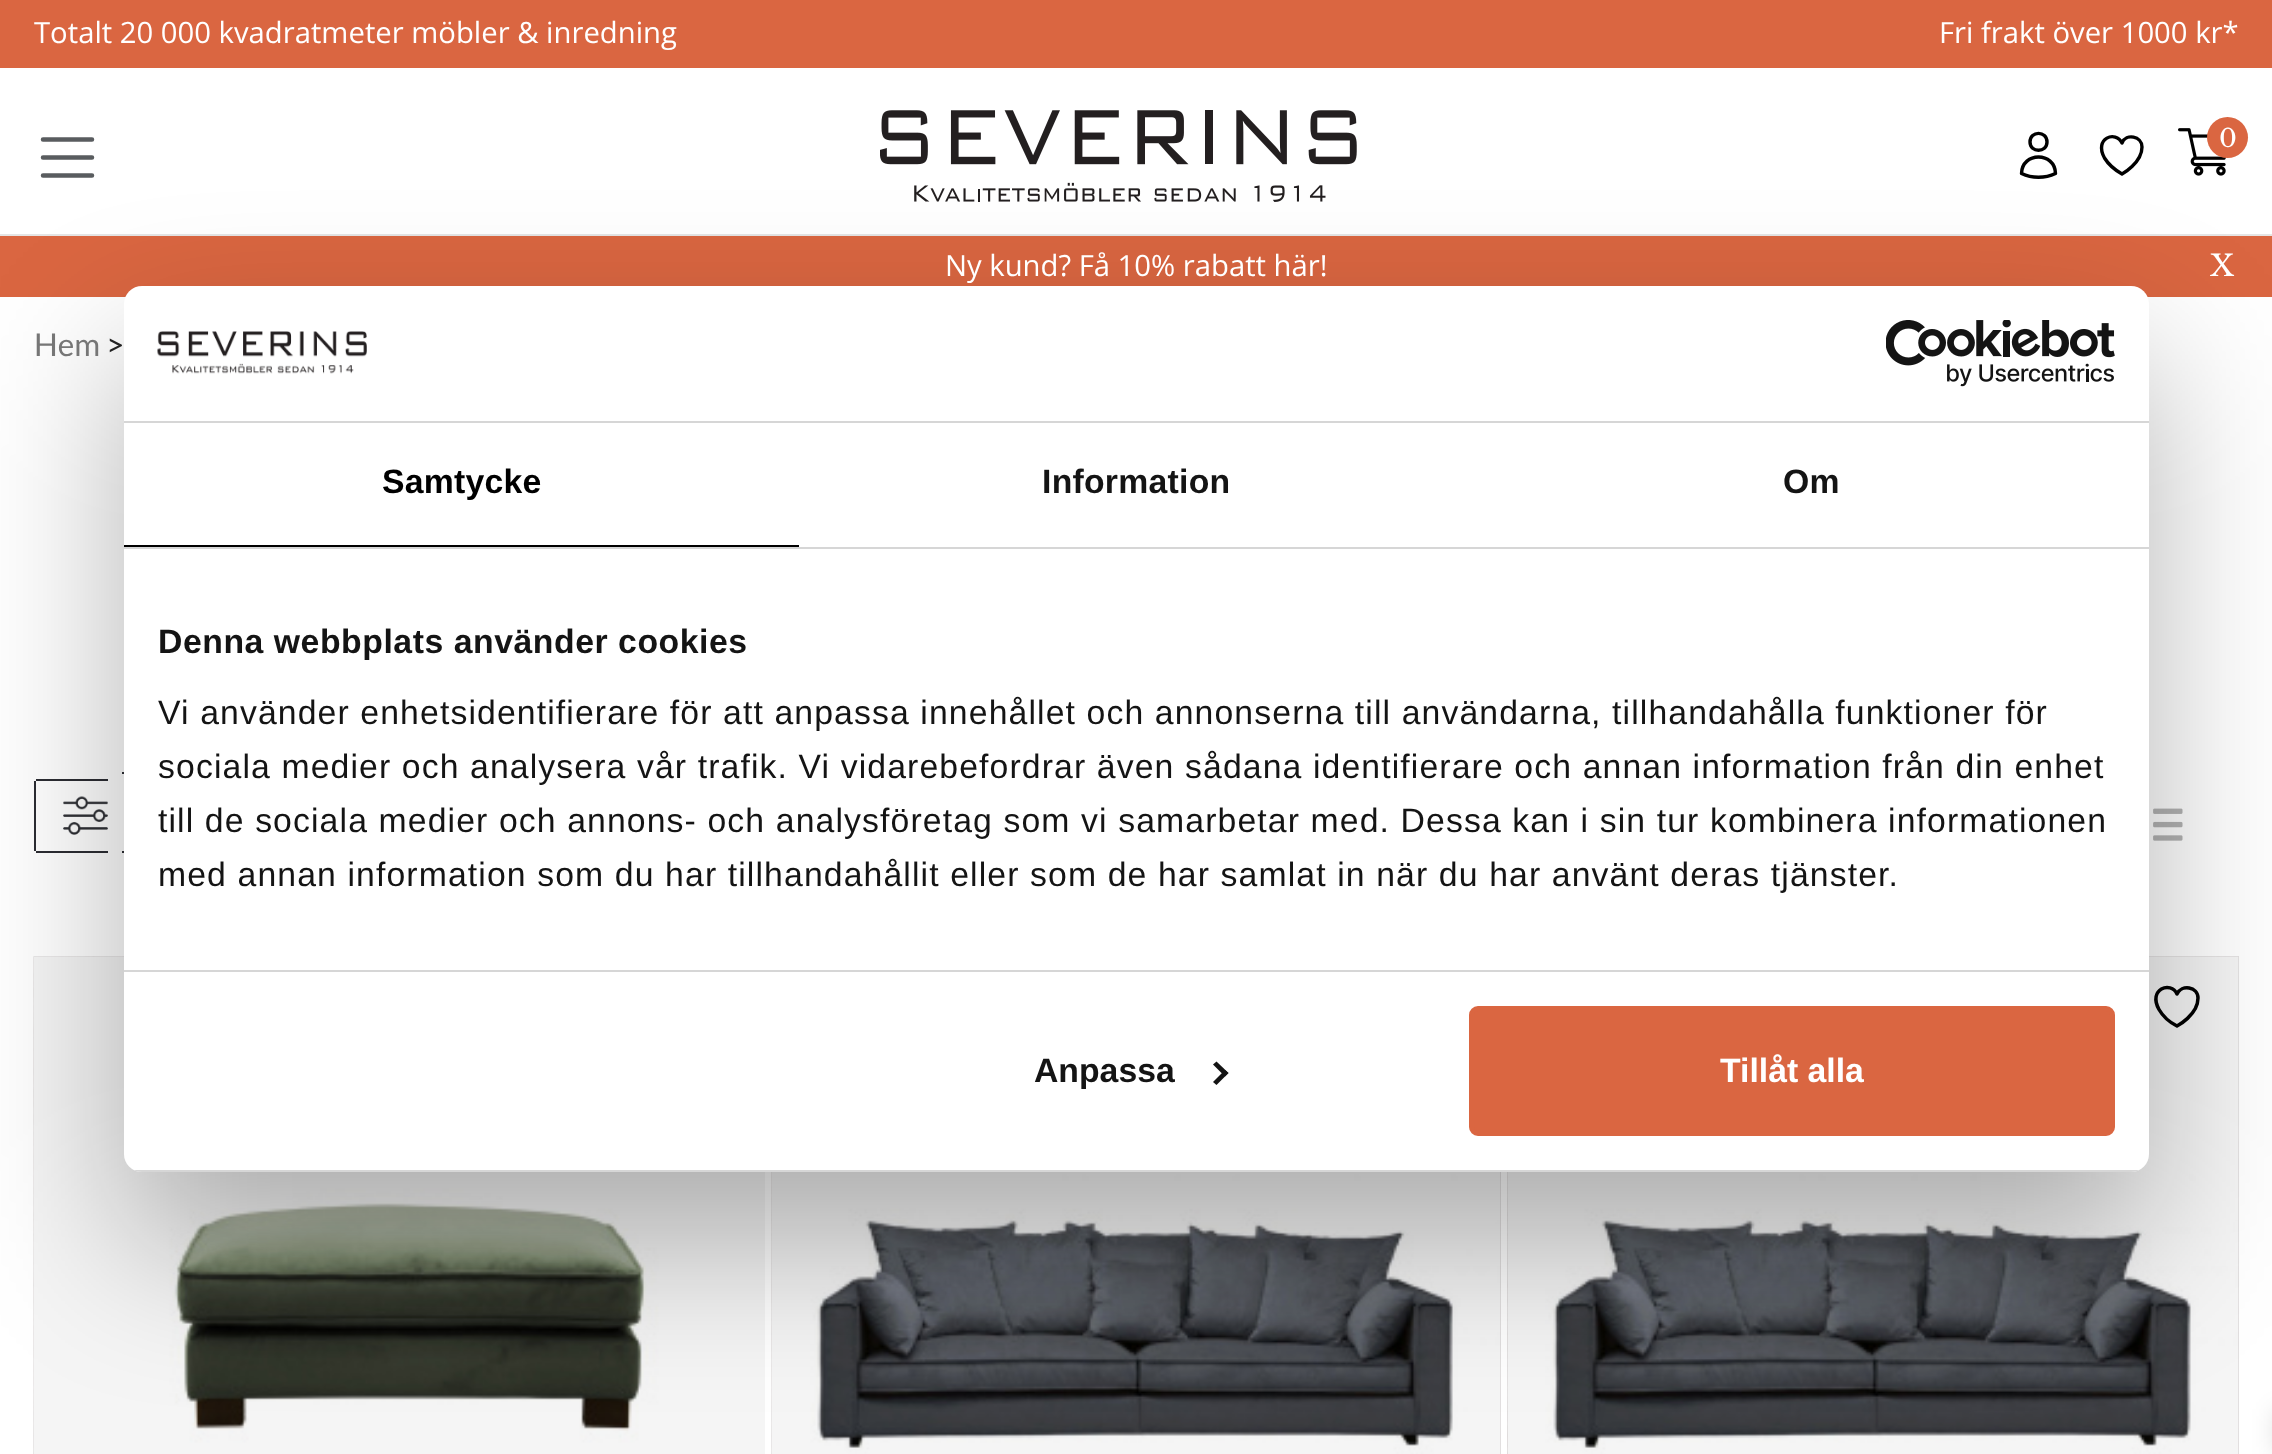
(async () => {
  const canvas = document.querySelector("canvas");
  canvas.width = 2272;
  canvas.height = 1454;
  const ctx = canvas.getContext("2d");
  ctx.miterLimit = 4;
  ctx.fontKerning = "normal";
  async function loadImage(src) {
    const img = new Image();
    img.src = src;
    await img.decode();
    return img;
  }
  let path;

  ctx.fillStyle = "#ffffff";
  ctx.fillRect(0, 0, 2272, 1454);
  ctx.fillStyle = "#da6641";
  ctx.fillRect(0, 0, 2272, 68);
  path = new Path2D("M43 139.5H92M43 157.5H92M43 175.5H92");
  ctx.strokeStyle = "#595c5f";
  ctx.lineWidth = 4.5;
  ctx.lineCap = "round";
  ctx.stroke(path);
  ctx.drawImage(await loadImage("img/1.png"), 880, 110, 477, 92);
  path = new Path2D("M2047 142C2047 153 2030 153 2030 142C2030 130.5 2047 130.5 2047 142ZM2021.5 173.5C2022 151.5 2055 151.5 2055.5 173.5C2045 178.5 2032 178.5 2021.5 173.5Z");
  ctx.strokeStyle = "#000000";
  ctx.lineWidth = 3.4;
  ctx.lineJoin = "round";
  ctx.stroke(path);
  path = new Path2D("M2142 147C2142 136 2126 133 2122 143C2116 130 2093.5 138 2104.5 158C2108.5 164.5 2115 170 2122 174C2122 174 2142 163 2142 147Z");
  ctx.stroke(path);
  ctx.drawImage(await loadImage("img/2.png"), 2178, 128, 48, 48);
  ctx.beginPath();
  ctx.arc(2227.5, 137.5, 20.5, 0, Math.PI * 2);
  ctx.fill();
  for (const [x, y, w, h, color] of [
    [0, 234, 2272, 2, "#e5e5e5"],
    [0, 236, 2272, 61, "#da6641"],
    [122, 772, 2, 2, "#2c2d33"],
    [36, 779, 72, 2, "#2c2d33"],
    [34, 781, 2, 70, "#2c2d33"],
  ]) {
    ctx.fillStyle = color;
    ctx.fillRect(x, y, w, h);
  }
  ctx.drawImage(await loadImage("img/5.png"), 63, 796, 45, 39);
  ctx.fillRect(36, 851, 72, 2);
  ctx.fillRect(122, 851, 2, 2);
  ctx.drawImage(await loadImage("img/6.png"), 2153, 808, 30, 33);
  ctx.drawImage(await loadImage("img/7.png"), 33, 956, 91, 498);
  ctx.drawImage(await loadImage("img/8.png"), 33, 956, 732, 498);
  ctx.drawImage(await loadImage("img/9.png"), 771, 1172, 730, 282);
  ctx.drawImage(await loadImage("img/10.png"), 771, 1172, 730, 282);
  ctx.drawImage(await loadImage("img/11.png"), 1507, 956, 732, 498);
  ctx.drawImage(await loadImage("img/12.png"), 1507, 956, 732, 498);
  path = new Path2D("M2198 998C2198 986.5 2181.5 984 2177 994C2171 980.5 2147.5 989 2159 1009.5C2163 1016.5 2170 1022.5 2177 1026C2177 1026 2198 1015 2198 998Z");
  ctx.lineWidth = 3.5;
  ctx.stroke(path);
  ctx.fillStyle = "rgba(0, 0, 0, 0.3)";
  ctx.filter = "blur(76.5px)";
  ctx.beginPath();
  ctx.roundRect(124, 358, 2025, 886, 18);
  ctx.fill();
  ctx.filter = "none";
  ctx.fillStyle = "#ffffff";
  ctx.beginPath();
  ctx.roundRect(124, 286, 2025, 886, 18);
  ctx.fill();
  ctx.fillStyle = "#d6d6d6";
  ctx.fillRect(124, 421, 2025, 2);
  ctx.drawImage(await loadImage("img/3.png"), 157, 331, 210, 43);
  ctx.drawImage(await loadImage("img/4.png"), 1886, 320, 229, 67);
  for (const [x, y, w, h, color] of [
    [124, 547, 2025, 2, "#d6d6d6"],
    [124, 545, 675, 2, "#000000"],
    [124, 970, 2025, 2, "#d6d6d6"],
  ]) {
    ctx.fillStyle = color;
    ctx.fillRect(x, y, w, h);
  }
  ctx.save();
  ctx.beginPath();
  ctx.roundRect(124, 286, 2025, 886, 18);
  ctx.clip();
  ctx.fillRect(134, 1170, 2005, 2);
  ctx.restore();
  ctx.fillStyle = "#141414";
  path = new Path2D("M1216.5 1061.5L1228.5 1073L1225 1076.5L1213 1064.5Z");
  ctx.fill(path);
  path = new Path2D("M1225 1070L1228.5 1073L1216.5 1085L1213 1082Z");
  ctx.fill(path);
  ctx.fillStyle = "#da6641";
  ctx.beginPath();
  ctx.roundRect(1471.5, 1008.5, 641, 125, 6.5);
  ctx.fill();
  ctx.strokeStyle = "#da6641";
  ctx.lineWidth = 5;
  ctx.lineJoin = "miter";
  ctx.stroke();
  ctx.fillStyle = "rgba(0, 0, 0, 0.1)";
  ctx.filter = "blur(11px)";
  ctx.beginPath();
  ctx.rect(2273, 1409, 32, 45);
  ctx.fill();
  ctx.filter = "none";
  ctx.font = "29.25px Open Sans";
  ctx.fillStyle = "#ffffff";
  ctx.fillText("Totalt 20 000 kvadratmeter möbler & inredning", 34, 43);
  ctx.fillText("Fri frakt över 1000 kr*", 1939, 43);
  ctx.font = "25px Libre Baskerville";
  ctx.fillText("0", 2219, 147);
  ctx.font = "29.25px Open Sans";
  ctx.fillText("Ny kund? Få 10% rabatt här!", 945, 276);
  ctx.font = "29.25px Libre Baskerville";
  ctx.fillText("X", 2210, 276);
  ctx.font = "31.5px Lato";
  ctx.fillStyle = "#767676";
  ctx.fillText("Hem", 34, 356);
  ctx.fillStyle = "#222222";
  ctx.fillText(">", 106, 356);
  ctx.letterSpacing = "0.25px";
  ctx.font = "bold 33.75px Liberation Sans";
  ctx.fillStyle = "#000000";
  ctx.fillText("Samtycke", 382, 493);
  ctx.fillStyle = "#141414";
  ctx.fillText("Information", 1042, 493);
  ctx.fillText("Om", 1783, 493);
  ctx.letterSpacing = "0.55px";
  ctx.fillText("Denna webbplats använder cookies", 158, 653);
  ctx.letterSpacing = "1.12px";
  ctx.font = "33.75px Liberation Sans";
  for (const [text, x, y] of [
    ["Vi använder enhetsidentifierare för att anpassa innehållet och annonserna till användarna, tillhandahålla funktioner för", 158, 724],
    ["sociala medier och analysera vår trafik. Vi vidarebefordrar även sådana identifierare och annan information från din enhet", 158, 778],
    ["till de sociala medier och annons- och analysföretag som vi samarbetar med. Dessa kan i sin tur kombinera informationen", 158, 832],
    ["med annan information som du har tillhandahållit eller som de har samlat in när du har använt deras tjänster.", 158, 886],
  ]) {
    ctx.fillText(text, x, y);
  }
  ctx.letterSpacing = "0px";
  ctx.font = "bold 33.75px Liberation Sans";
  ctx.fillText("Anpassa", 1034, 1082);
  ctx.fillStyle = "#ffffff";
  ctx.fillText("Tillåt alla", 1720, 1082);
})();
